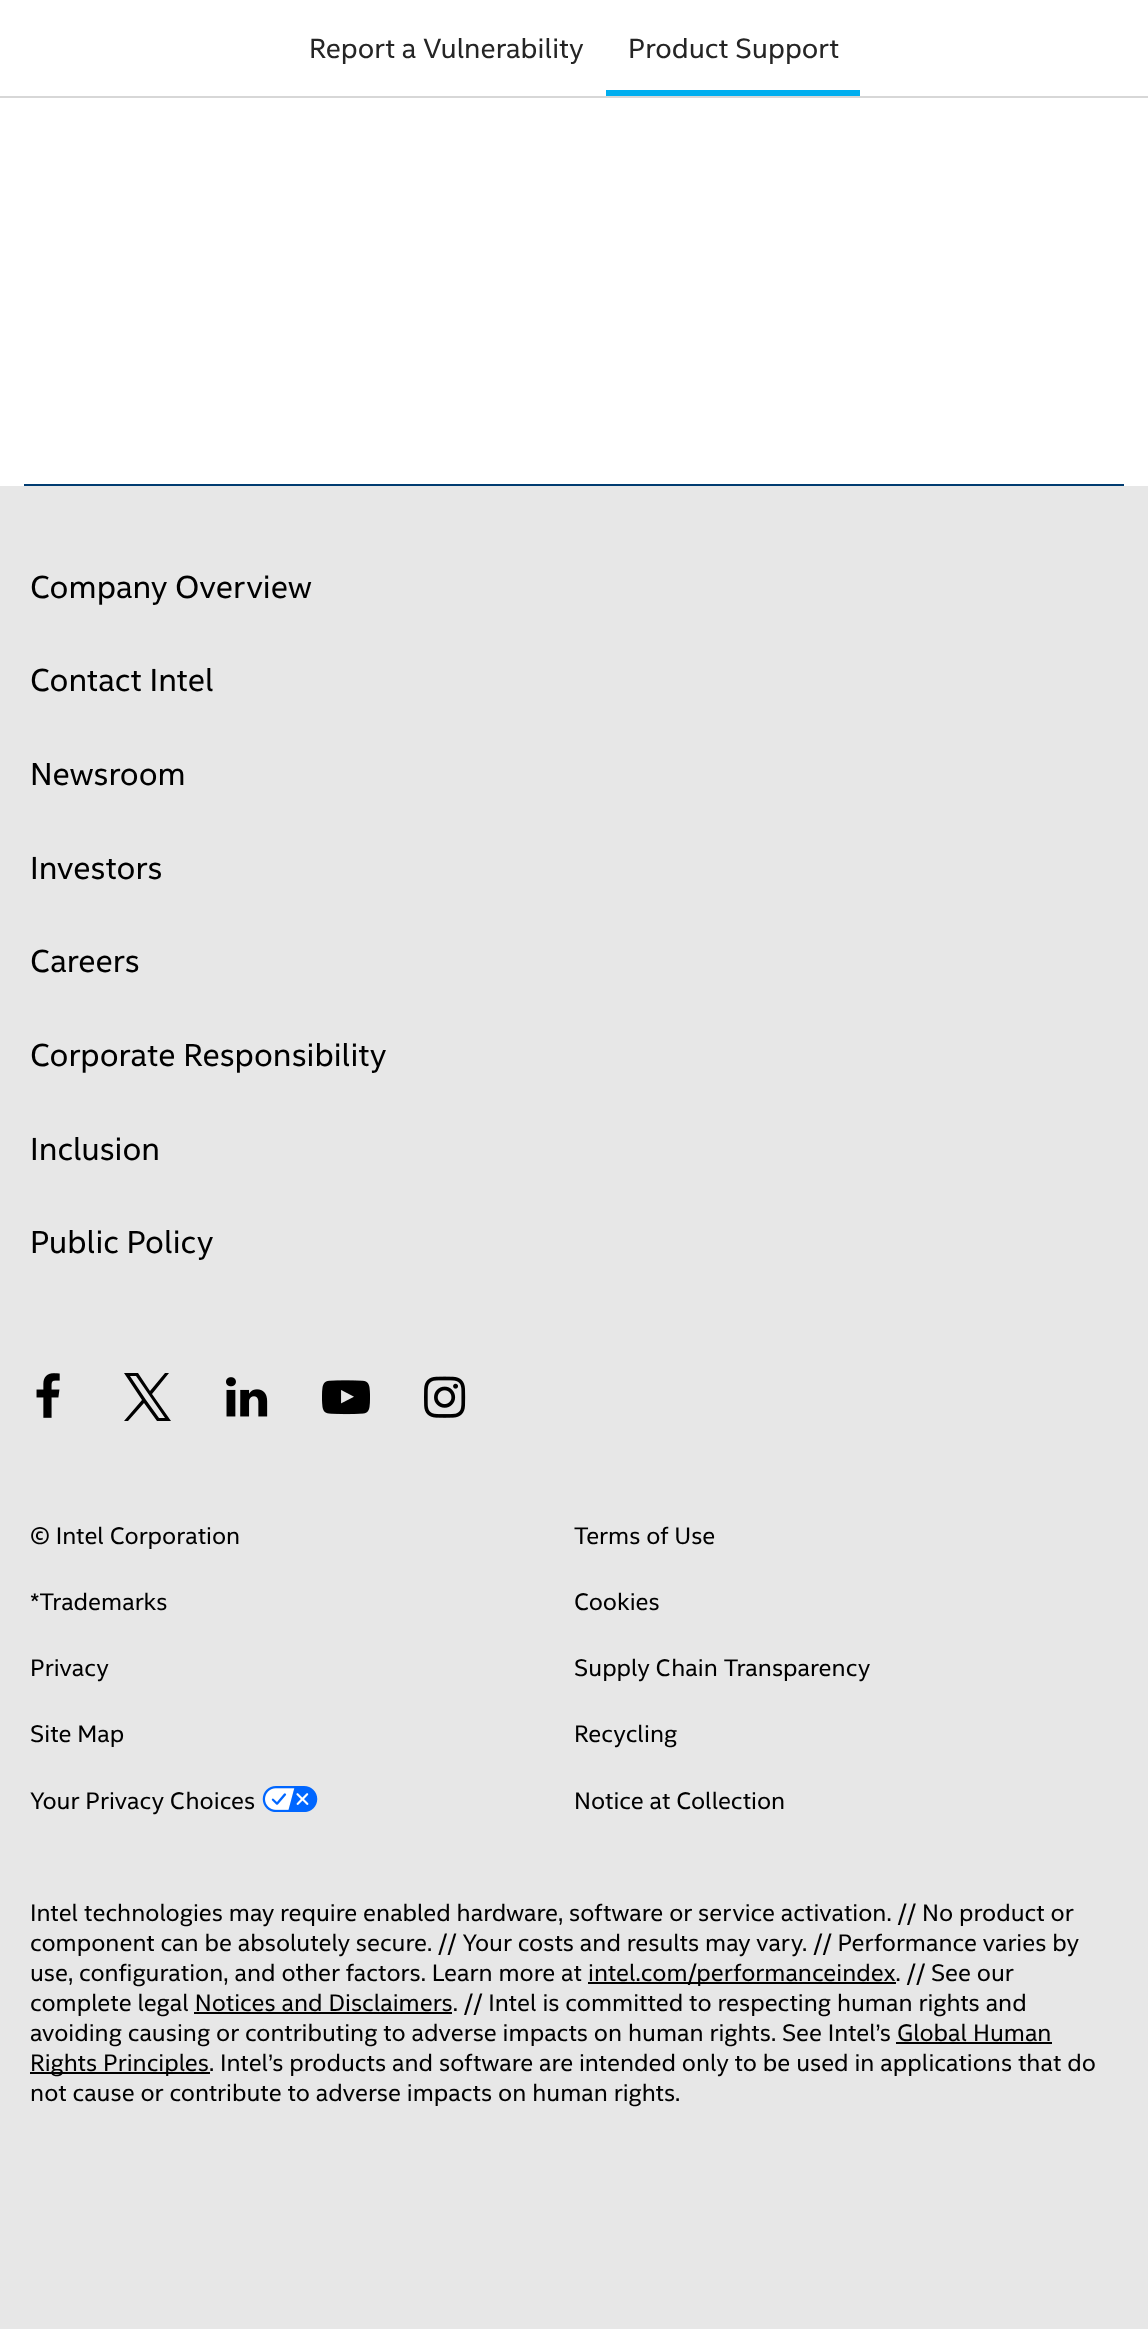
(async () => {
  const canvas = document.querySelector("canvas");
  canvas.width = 1148;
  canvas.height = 2329;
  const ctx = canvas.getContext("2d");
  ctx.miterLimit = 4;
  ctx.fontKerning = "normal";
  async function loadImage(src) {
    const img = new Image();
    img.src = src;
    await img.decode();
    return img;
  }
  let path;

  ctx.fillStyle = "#ffffff";
  ctx.fillRect(0, 0, 1148, 2329);
  for (const [x, y, w, h, color] of [
    [0, 96, 1148, 2, "#d7d7d7"],
    [606, 90, 254, 6, "#00aeef"],
    [24, 484, 1100, 2, "#003c71"],
    [0, 486, 1148, 1843, "#e7e7e7"],
  ]) {
    ctx.fillStyle = color;
    ctx.fillRect(x, y, w, h);
  }
  ctx.drawImage(await loadImage("img/1.png"), 36, 1373, 24, 45);
  ctx.fillStyle = "#000000";
  path = new Path2D("M152 1394L169 1373H165L150 1391L138 1373H124L142 1400L124 1421H128L144 1403L157 1421H171ZM146 1400L130 1376H136L165 1418H159Z");
  ctx.fill(path);
  ctx.drawImage(await loadImage("img/2.png"), 226, 1377, 42, 40);
  ctx.drawImage(await loadImage("img/3.png"), 322, 1380, 48, 35);
  ctx.drawImage(await loadImage("img/4.png"), 424, 1376, 42, 42);
  ctx.drawImage(await loadImage("img/5.png"), 262, 1786, 56, 26);
  for (const [x, y, w, h, color] of [
    [588, 1982, 308, 2, "#000000"],
    [194, 2012, 258, 2, "#000000"],
    [896, 2042, 156, 2, "#000000"],
    [30, 2072, 180, 2, "#000000"],
  ]) {
    ctx.fillStyle = color;
    ctx.fillRect(x, y, w, h);
  }
  ctx.font = "28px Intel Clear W";
  ctx.fillStyle = "#252525";
  ctx.fillText("Report a Vulnerability", 309, 58);
  ctx.fillText("Product Support", 628, 58);
  ctx.font = "32px Intel Clear W";
  ctx.fillStyle = "#000000";
  for (const [text, x, y] of [
    ["Company Overview", 30, 598],
    ["Contact Intel", 30, 691],
    ["Newsroom", 30, 785],
    ["Investors", 30, 879],
    ["Careers", 30, 972],
    ["Corporate Responsibility", 30, 1066],
    ["Inclusion", 30, 1160],
    ["Public Policy", 30, 1253],
  ]) {
    ctx.fillText(text, x, y);
  }
  ctx.font = "24px Intel Clear W";
  for (const [text, x, y] of [
    ["© Intel Corporation", 30, 1544],
    ["Terms of Use", 574, 1544],
    ["*Trademarks", 30, 1610],
    ["Cookies", 574, 1610],
    ["Privacy", 30, 1676],
    ["Supply Chain Transparency", 574, 1676],
    ["Site Map", 30, 1742],
    ["Recycling", 574, 1742],
    ["Your Privacy Choices", 30, 1809],
    ["Notice at Collection", 574, 1809],
    ["Intel technologies may require enabled hardware, software or service activation. // No product or", 30, 1921],
    ["component can be absolutely secure. // Your costs and results may vary. // Performance varies by", 30, 1951],
    ["use, configuration, and other factors. Learn more at", 30, 1981],
    ["intel.com/performanceindex. // See our", 588, 1981],
    ["complete legal Notices and Disclaimers. // Intel is committed to respecting human rights and", 30, 2011],
    ["avoiding causing or contributing to adverse impacts on human rights. See Intel’s Global Human", 30, 2041],
    ["Rights Principles. Intel’s products and software are intended only to be used in applications that do", 30, 2071],
    ["not cause or contribute to adverse impacts on human rights.", 30, 2101],
  ]) {
    ctx.fillText(text, x, y);
  }
})();
